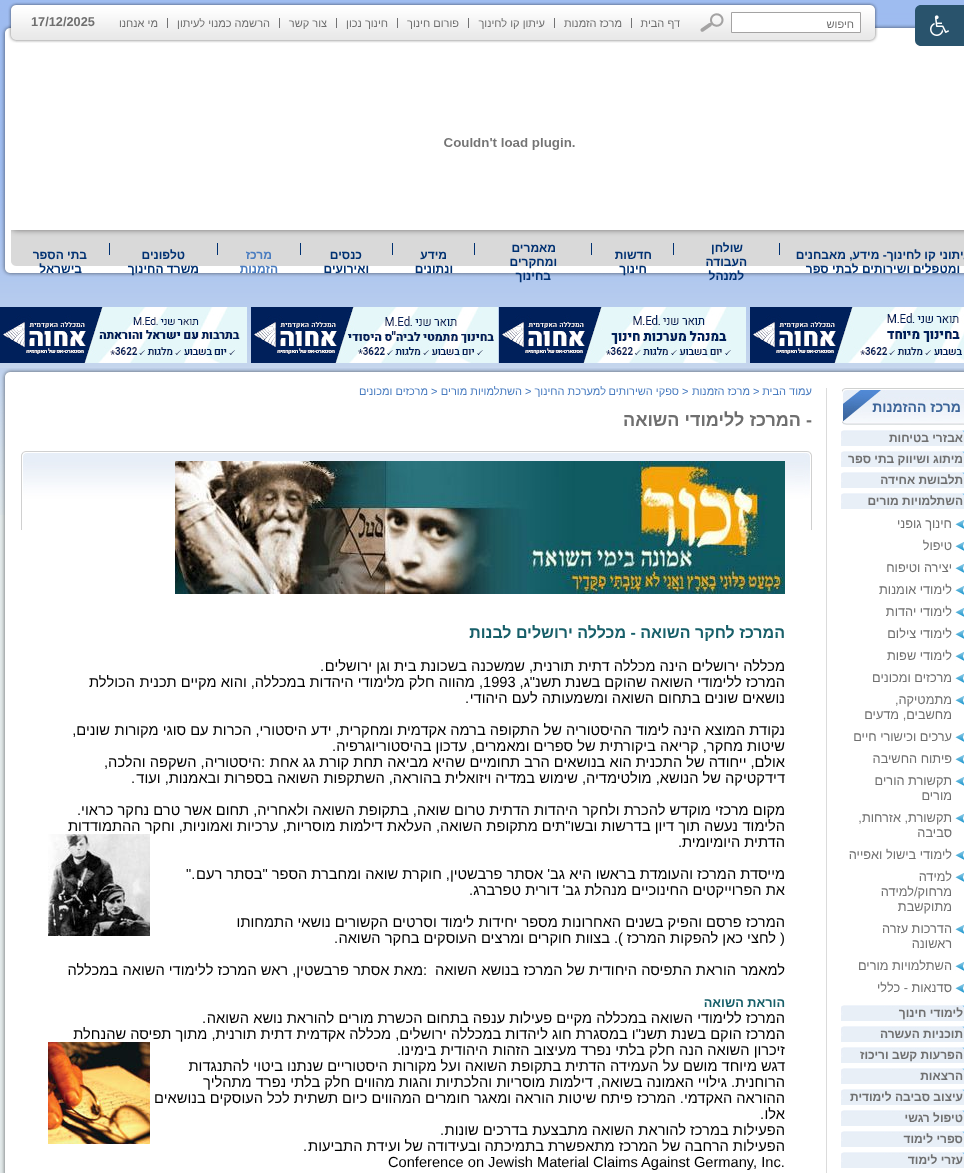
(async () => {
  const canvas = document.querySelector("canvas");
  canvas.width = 964;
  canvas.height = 1173;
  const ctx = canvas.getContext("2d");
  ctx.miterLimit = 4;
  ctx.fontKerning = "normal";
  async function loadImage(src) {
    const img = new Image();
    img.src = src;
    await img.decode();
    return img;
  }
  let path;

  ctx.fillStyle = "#ffffff";
  ctx.fillRect(0, 0, 964, 1173);
  ctx.drawImage(await loadImage("img/1.png"), 0, 0, 964, 368);
  ctx.drawImage(await loadImage("img/3.png"), 1, 24, 963, 253);
  ctx.fillStyle = "#29536c";
  path = new Path2D("M921 5H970V46H921C917.5 46 915 43.5 915 40V11C915 7.5 917.5 5 921 5Z");
  ctx.fill(path);
  ctx.drawImage(await loadImage("img/2.png"), 930, 15, 19, 21);
  ctx.drawImage(await loadImage("img/4.png"), 16, 2, 854, 41);
  ctx.drawImage(await loadImage("img/5.png"), 870, 2, 8, 41);
  ctx.fillStyle = "#ffffff";
  ctx.beginPath();
  ctx.rect(731.5, 12.5, 129, 20);
  ctx.fill();
  ctx.strokeStyle = "#a4a3a3";
  ctx.stroke();
  ctx.drawImage(await loadImage("img/6.png"), 700, 13, 24, 19);
  for (const [x, y, w, h, color] of [
    [631, 18, 1, 10, "#727273"],
    [554, 18, 1, 10, "#727273"],
    [468, 18, 1, 10, "#727273"],
    [397, 18, 1, 10, "#727273"],
    [336, 18, 1, 10, "#727273"],
    [279, 18, 1, 10, "#727273"],
    [167, 18, 1, 10, "#727273"],
  ]) {
    ctx.fillStyle = color;
    ctx.fillRect(x, y, w, h);
  }
  ctx.drawImage(await loadImage("img/7.png"), 0, 2, 16, 41);
  ctx.drawImage(await loadImage("img/8.png"), 444, 138, 131, 12);
  ctx.drawImage(await loadImage("img/9.png"), 11, 230, 953, 36);
  for (const [x, y, w, h, color] of [
    [779, 243, 1, 12, "#003172"],
    [673, 243, 1, 12, "#003172"],
    [591, 243, 1, 12, "#003172"],
    [474, 243, 1, 12, "#003172"],
    [392, 243, 1, 12, "#003172"],
    [300, 243, 1, 12, "#003172"],
    [217, 243, 1, 12, "#003172"],
    [109, 243, 1, 12, "#003172"],
  ]) {
    ctx.fillStyle = color;
    ctx.fillRect(x, y, w, h);
  }
  ctx.drawImage(await loadImage("img/10.png"), 750, 307, 214, 56);
  ctx.drawImage(await loadImage("img/11.png"), 499, 307, 247, 56);
  ctx.drawImage(await loadImage("img/12.png"), 251, 307, 247, 56);
  ctx.drawImage(await loadImage("img/13.png"), 0, 307, 247, 56);
  ctx.drawImage(await loadImage("img/14.png"), 0, 515, 964, 658);
  ctx.drawImage(await loadImage("img/15.png"), 0, 368, 964, 147);
  ctx.fillStyle = "#dbdbdb";
  ctx.fillRect(826, 388, 1, 785);
  ctx.drawImage(await loadImage("img/16.png"), 842, 388, 122, 37);
  ctx.drawImage(await loadImage("img/17.png"), 841, 430, 123, 16);
  ctx.drawImage(await loadImage("img/17.png"), 841, 451, 123, 16);
  ctx.drawImage(await loadImage("img/17.png"), 841, 472, 123, 16);
  ctx.drawImage(await loadImage("img/17.png"), 841, 493, 123, 16);
  ctx.drawImage(await loadImage("img/18.png"), 955, 520, 9, 9);
  ctx.drawImage(await loadImage("img/18.png"), 955, 542, 9, 9);
  ctx.drawImage(await loadImage("img/18.png"), 955, 564, 9, 9);
  ctx.drawImage(await loadImage("img/18.png"), 955, 586, 9, 9);
  ctx.drawImage(await loadImage("img/18.png"), 955, 608, 9, 9);
  ctx.drawImage(await loadImage("img/18.png"), 955, 630, 9, 9);
  ctx.drawImage(await loadImage("img/18.png"), 955, 652, 9, 9);
  ctx.drawImage(await loadImage("img/18.png"), 955, 674, 9, 9);
  ctx.drawImage(await loadImage("img/18.png"), 955, 696, 9, 9);
  ctx.drawImage(await loadImage("img/18.png"), 955, 733, 9, 9);
  ctx.drawImage(await loadImage("img/18.png"), 955, 755, 9, 9);
  ctx.drawImage(await loadImage("img/18.png"), 955, 777, 9, 9);
  ctx.drawImage(await loadImage("img/18.png"), 955, 814, 9, 9);
  ctx.drawImage(await loadImage("img/18.png"), 955, 851, 9, 9);
  ctx.drawImage(await loadImage("img/18.png"), 955, 873, 9, 9);
  ctx.drawImage(await loadImage("img/18.png"), 955, 925, 9, 9);
  ctx.drawImage(await loadImage("img/18.png"), 955, 962, 9, 9);
  ctx.drawImage(await loadImage("img/18.png"), 955, 984, 9, 9);
  ctx.drawImage(await loadImage("img/17.png"), 841, 1005, 123, 16);
  ctx.drawImage(await loadImage("img/17.png"), 841, 1026, 123, 16);
  ctx.drawImage(await loadImage("img/17.png"), 841, 1047, 123, 16);
  ctx.drawImage(await loadImage("img/17.png"), 841, 1068, 123, 16);
  ctx.drawImage(await loadImage("img/17.png"), 841, 1089, 123, 16);
  ctx.drawImage(await loadImage("img/17.png"), 841, 1110, 123, 16);
  ctx.drawImage(await loadImage("img/17.png"), 841, 1131, 123, 16);
  ctx.drawImage(await loadImage("img/17.png"), 841, 1152, 123, 16);
  ctx.drawImage(await loadImage("img/19.png"), 21, 451, 791, 79);
  ctx.drawImage(await loadImage("img/20.png"), 175, 461, 610, 133);
  ctx.drawImage(await loadImage("img/21.png"), 48, 834, 102, 102);
  ctx.drawImage(await loadImage("img/22.png"), 48, 1042, 102, 102);
  ctx.direction = "rtl";
  ctx.font = "11px Liberation Sans";
  ctx.fillStyle = "#6f6f6f";
  for (const [text, x, y] of [
    ["חיפוש", 854, 28],
    ["דף הבית", 680, 27],
    ["מרכז הזמנות", 622, 27],
    ["עיתון קו לחינוך", 545, 27],
    ["פורום חינוך", 459, 27],
    ["חינוך נכון", 388, 27],
    ["צור קשר", 327, 27],
    ["הרשמה כמנוי לעיתון", 270, 27],
    ["מי אנחנו", 158, 27],
  ]) {
    ctx.fillText(text, x, y);
  }
  ctx.direction = "ltr";
  ctx.font = "bold 12.75px Liberation Sans";
  ctx.fillText("17/12/2025", 31, 26);
  ctx.direction = "rtl";
  ctx.font = "bold 12px Liberation Sans";
  ctx.fillStyle = "#003172";
  for (const [text, x, y] of [
    ["עיתוני קו לחינוך- מידע, מאבחנים", 971, 259],
    ["ומטפלים", 960, 273],
    ["ושירותים לבתי ספר", 910, 273],
    ["שולחן", 743, 252],
    ["העבודה", 747, 266],
    ["למנהל", 744, 280],
    ["חדשות", 652, 259],
    ["חינוך", 647, 273],
    ["מאמרים", 556, 252],
    ["ומחקרים", 557, 266],
    ["בחינוך", 551, 280],
    ["מידע", 447, 259],
    ["ונתונים", 453, 273],
    ["כנסים", 362, 259],
    ["ואירועים", 369, 273],
  ]) {
    ctx.fillText(text, x, y);
  }
  ctx.fillStyle = "#497cc0";
  ctx.fillText("מרכז", 272, 259);
  ctx.fillText("הזמנות", 278, 273);
  ctx.fillStyle = "#003172";
  for (const [text, x, y] of [
    ["טלפונים", 185, 259],
    ["משרד החינוך", 199, 273],
    ["בתי הספר", 87, 259],
    ["בישראל", 82, 273],
  ]) {
    ctx.fillText(text, x, y);
  }
  ctx.font = "bold 14px Liberation Sans";
  ctx.fillStyle = "#3d6599";
  ctx.fillText("מרכז ההזמנות", 961, 412);
  ctx.font = "bold 12px Liberation Sans";
  ctx.fillStyle = "#6f6f6f";
  for (const [text, x, y] of [
    ["אבזרי בטיחות", 963, 442],
    ["מיתוג ושיווק בתי ספר", 963, 463],
    ["תלבושת אחידה", 963, 484],
    ["השתלמויות מורים", 963, 505],
  ]) {
    ctx.fillText(text, x, y);
  }
  ctx.font = "12.75px Liberation Sans";
  for (const [text, x, y] of [
    ["חינוך גופני", 952, 528],
    ["טיפול", 952, 550],
    ["יצירה וטיפוח", 952, 572],
    ["לימודי אומנות", 952, 594],
    ["לימודי יהדות", 952, 616],
    ["לימודי צילום", 952, 638],
    ["לימודי שפות", 952, 660],
    ["מרכזים ומכונים", 952, 682],
    ["מתמטיקה,", 952, 704],
    ["מחשבים, מדעים", 952, 719],
    ["ערכים וכישורי חיים", 952, 741],
    ["פיתוח החשיבה", 952, 763],
    ["תקשורת הורים", 952, 785],
    ["מורים", 952, 800],
    ["תקשורת, אזרחות,", 952, 822],
    ["סביבה", 952, 837],
    ["לימודי בישול ואפייה", 952, 859],
    ["למידה", 952, 881],
    ["מרחוק/למידה", 952, 896],
    ["מתוקשבת", 952, 911],
    ["הדרכות עזרה", 952, 933],
    ["ראשונה", 952, 948],
    ["השתלמויות מורים", 952, 970],
    ["סדנאות - כללי", 952, 992],
  ]) {
    ctx.fillText(text, x, y);
  }
  ctx.font = "bold 12px Liberation Sans";
  for (const [text, x, y] of [
    ["לימודי חינוך", 963, 1017],
    ["תוכניות העשרה", 963, 1038],
    ["הפרעות קשב וריכוז", 963, 1059],
    ["הרצאות", 963, 1080],
    ["עיצוב סביבה לימודית", 963, 1101],
    ["טיפול רגשי", 963, 1122],
    ["ספרי לימוד", 963, 1143],
    ["עזרי לימוד", 963, 1164],
  ]) {
    ctx.fillText(text, x, y);
  }
  ctx.font = "11px Liberation Sans";
  ctx.fillStyle = "#497cc0";
  ctx.fillText("עמוד הבית", 812, 395);
  ctx.direction = "ltr";
  ctx.fillText(">", 753, 395);
  ctx.direction = "rtl";
  ctx.fillText("מרכז הזמנות", 750, 395);
  ctx.direction = "ltr";
  ctx.fillText(">", 682, 395);
  ctx.direction = "rtl";
  ctx.fillText("ספקי השירותים", 679, 395);
  ctx.fillText("למערכת החינוך", 606, 395);
  ctx.direction = "ltr";
  ctx.fillText(">", 525, 395);
  ctx.direction = "rtl";
  ctx.fillText("השתלמויות מורים", 522, 395);
  ctx.direction = "ltr";
  ctx.fillText(">", 431, 395);
  ctx.direction = "rtl";
  ctx.fillText("מרכזים ומכונים", 428, 395);
  ctx.font = "bold 18px Liberation Sans";
  ctx.fillStyle = "#6f6f6f";
  ctx.fillText("- המרכז ללימודי השואה", 812, 426);
  ctx.font = "bold 16px Liberation Sans";
  ctx.fillStyle = "#175f69";
  ctx.fillText("המרכז לחקר השואה - מכללה ירושלים לבנות", 785, 638);
  ctx.font = "14.65px Liberation Sans";
  ctx.fillStyle = "#000000";
  ctx.fillText("מכללה", 785, 671);
  ctx.fillText("ירושלים הינה מכללה דתית תורנית, שמשכנה בשכונת בית וגן ירושלים", 739, 671);
  ctx.direction = "ltr";
  ctx.fillText(".", 320, 671);
  ctx.direction = "rtl";
  ctx.fillText("המרכז ללימודי", 785, 687);
  ctx.fillText("השואה שהוקם בשנת תשנ\"ג,", 693, 687);
  ctx.direction = "ltr";
  ctx.fillText("1993", 483, 687);
  ctx.direction = "rtl";
  for (const [text, x, y] of [
    [", מהווה חלק מלימודי היהדות במכללה, והוא מקיים תכנית", 483, 687],
    ["הכוללת", 135, 687],
    ["נושאים שונים בתחום השואה ומשמעותה לעם היהודי", 785, 703],
  ]) {
    ctx.fillText(text, x, y);
  }
  ctx.direction = "ltr";
  ctx.fillText(".", 465, 703);
  ctx.direction = "rtl";
  for (const [text, x, y] of [
    ["נקודת המוצא הינה", 785, 735],
    ["לימוד ההיסטוריה של התקופה ברמה אקדמית ומחקרית, ידע היסטורי, הכרות עם סוגי מקורות", 669, 735],
    ["שונים,", 110, 735],
    ["שיטות מחקר, קריאה ביקורתית של ספרים ומאמרים, עדכון בהיסטוריוגרפיה", 785, 751],
  ]) {
    ctx.fillText(text, x, y);
  }
  ctx.direction = "ltr";
  ctx.fillText(".", 332, 751);
  ctx.direction = "rtl";
  ctx.fillText("אולם, ייחודה של התכנית הוא בנושאים הרב תחומיים שהיא מביאה תחת קורת גג אחת", 785, 767);
  ctx.direction = "ltr";
  ctx.fillText(":", 261, 767);
  ctx.direction = "rtl";
  for (const [text, x, y] of [
    ["היסטוריה, השקפה והלכה,", 261, 767],
    ["דידקטיקה של הנושא, מולטימדיה, שימוש במדיה ויזואלית", 785, 783],
    ["בהוראה, השתקפות השואה בספרות ובאמנות, ועוד", 441, 783],
  ]) {
    ctx.fillText(text, x, y);
  }
  ctx.direction = "ltr";
  ctx.fillText(".", 131, 783);
  ctx.direction = "rtl";
  for (const [text, x, y] of [
    ["מקום מרכזי מוקדש להכרת ולחקר", 785, 815],
    ["היהדות הדתית טרום שואה, בתקופת השואה ולאחריה, תחום אשר טרם נחקר כראוי.", 578, 815],
    ["הלימוד", 785, 831],
    ["נעשה תוך דיון בדרשות ובשו\"תים מתקופת השואה, העלאת דילמות מוסריות, ערכיות", 738, 831],
    ["ואמוניות, וחקר ההתמודדות", 233, 831],
    ["הדתית היומיומית", 785, 847],
  ]) {
    ctx.fillText(text, x, y);
  }
  ctx.direction = "ltr";
  ctx.fillText(".", 678, 847);
  ctx.direction = "rtl";
  ctx.fillText("מייסדת המרכז והעומדת בראשו היא", 785, 879);
  ctx.fillText("גב' אסתר פרבשטין, חוקרת שואה ומחברת הספר \"בסתר רעם", 565, 879);
  ctx.direction = "ltr";
  ctx.fillText("\".", 186, 879);
  ctx.direction = "rtl";
  ctx.fillText("את הפרוייקטים החינוכיים", 785, 895);
  ctx.fillText("מנהלת גב' דורית טפרברג", 627, 895);
  ctx.direction = "ltr";
  ctx.fillText(".", 469, 895);
  ctx.direction = "rtl";
  ctx.fillText("המרכז פרסם והפיק בשנים האחרונות מספר יחידות", 785, 927);
  ctx.fillText("לימוד וסרטים הקשורים נושאי התמחותו", 474, 927);
  ctx.direction = "ltr";
  ctx.fillText(")", 780, 943);
  ctx.direction = "rtl";
  ctx.fillText("לחצי כאן להפקות המרכז", 776, 943);
  ctx.fillText("). בצוות חוקרים ומרצים העוסקים בחקר השואה", 623, 943);
  ctx.direction = "ltr";
  ctx.fillText(".", 334, 943);
  ctx.direction = "rtl";
  ctx.fillText("למאמר", 785, 975);
  ctx.fillText("הוראת התפיסה היחודית של המרכז בנושא השואה", 736, 975);
  ctx.direction = "ltr";
  ctx.fillText(":", 423, 975);
  ctx.direction = "rtl";
  ctx.fillText("מאת אסתר פרבשטין, ראש המרכז ללימודי השואה", 423, 975);
  ctx.fillText("במכללה", 118, 975);
  ctx.font = "bold 12.75px Liberation Sans";
  ctx.fillStyle = "#175f69";
  ctx.fillText("הוראת השואה", 785, 1007);
  ctx.font = "14.65px Liberation Sans";
  ctx.fillStyle = "#000000";
  ctx.fillText("המרכז ללימודי השואה במכללה מקיים פעילות ענפה בתחום הכשרת מורים להוראת נושא", 785, 1023);
  ctx.fillText("השואה", 249, 1023);
  ctx.direction = "ltr";
  ctx.fillText(".", 202, 1023);
  ctx.direction = "rtl";
  for (const [text, x, y] of [
    ["המרכז הוקם בשנת תשנ\"ו במסגרת חוג ליהדות במכללה ירושלים, מכללה אקדמית", 785, 1039],
    ["דתית תורנית, מתוך תפיסה שהנחלת", 292, 1039],
    ["זיכרון השואה הנה חלק בלתי נפרד מעיצוב הזהות", 785, 1055],
    ["היהודית בימינו", 488, 1055],
  ]) {
    ctx.fillText(text, x, y);
  }
  ctx.direction = "ltr";
  ctx.fillText(".", 397, 1055);
  ctx.direction = "rtl";
  for (const [text, x, y] of [
    ["דגש מיוחד מושם על העמידה הדתית בתקופת השואה ועל מקורות", 785, 1071],
    ["היסטוריים שנתנו ביטוי להתנגדות", 388, 1071],
    ["הרוחנית. גילויי האמונה בשואה, דילמות מוסריות", 785, 1087],
    ["והלכתיות והגות מהווים חלק בלתי נפרד מתהליך", 492, 1087],
    ["ההוראה האקדמי. המרכז פיתח שיטות הוראה", 785, 1103],
    ["ומאגר חומרים המהווים כיום תשתית לכל העוסקים בנושאים", 511, 1103],
    ["אלו", 785, 1119],
  ]) {
    ctx.fillText(text, x, y);
  }
  ctx.direction = "ltr";
  ctx.fillText(".", 760, 1119);
  ctx.direction = "rtl";
  ctx.fillText("הפעילות במרכז להוראת", 785, 1135);
  ctx.fillText("השואה מתבצעת בדרכים שונות", 634, 1135);
  ctx.direction = "ltr";
  ctx.fillText(".", 440, 1135);
  ctx.direction = "rtl";
  ctx.fillText("הפעילות הרחבה של המרכז מתאפשרת בתמיכתה ובעידודה", 785, 1151);
  ctx.fillText("של ועידת התביעות", 423, 1151);
  ctx.direction = "ltr";
  ctx.fillText(".", 303, 1151);
  ctx.fillText("Conference on Jewish Material Claims Against Germany, Inc.", 388, 1167);
})();
